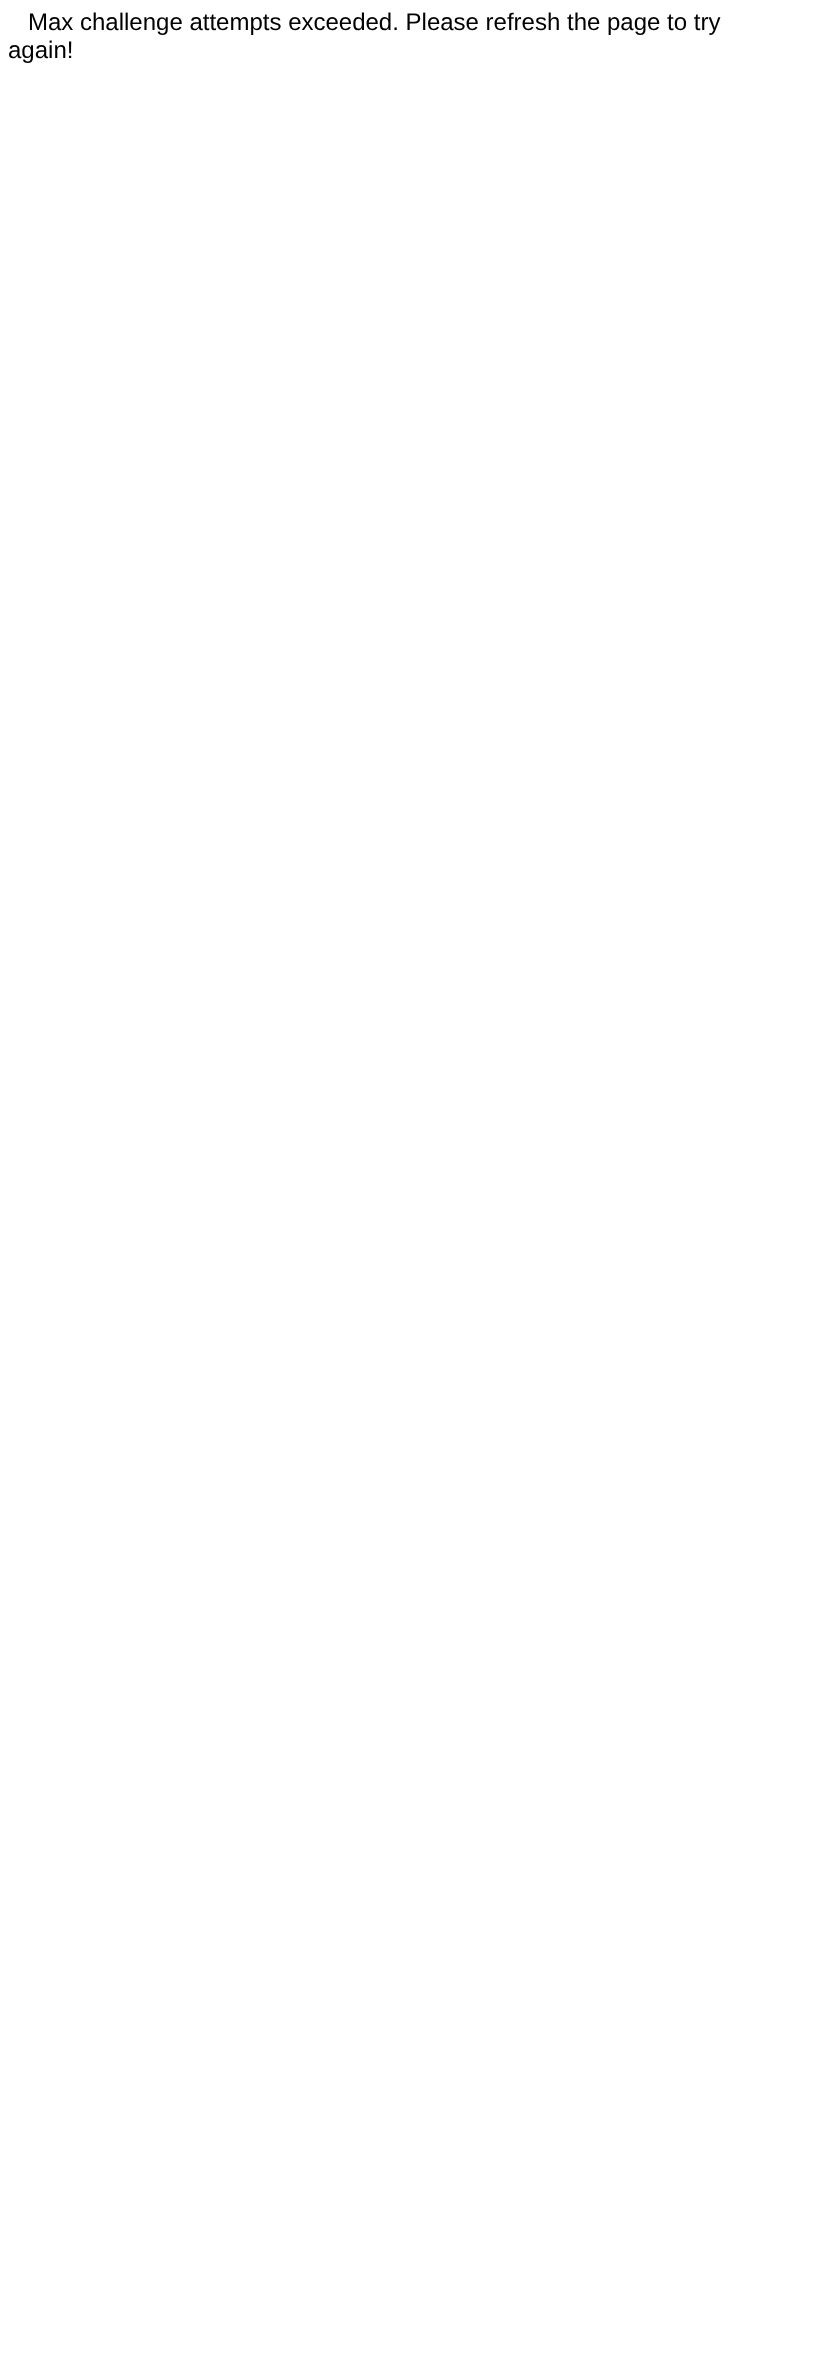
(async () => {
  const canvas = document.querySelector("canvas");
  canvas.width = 816;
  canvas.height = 2380;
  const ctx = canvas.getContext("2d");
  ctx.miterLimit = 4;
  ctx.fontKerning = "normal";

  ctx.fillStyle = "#ffffff";
  ctx.fillRect(0, 0, 816, 2380);
  ctx.font = "24px Liberation Sans";
  ctx.fillStyle = "#000000";
  ctx.fillText("Max challenge attempts exceeded. Please refresh the page to try", 28, 30);
  ctx.fillText("again!", 8, 58);
})();
